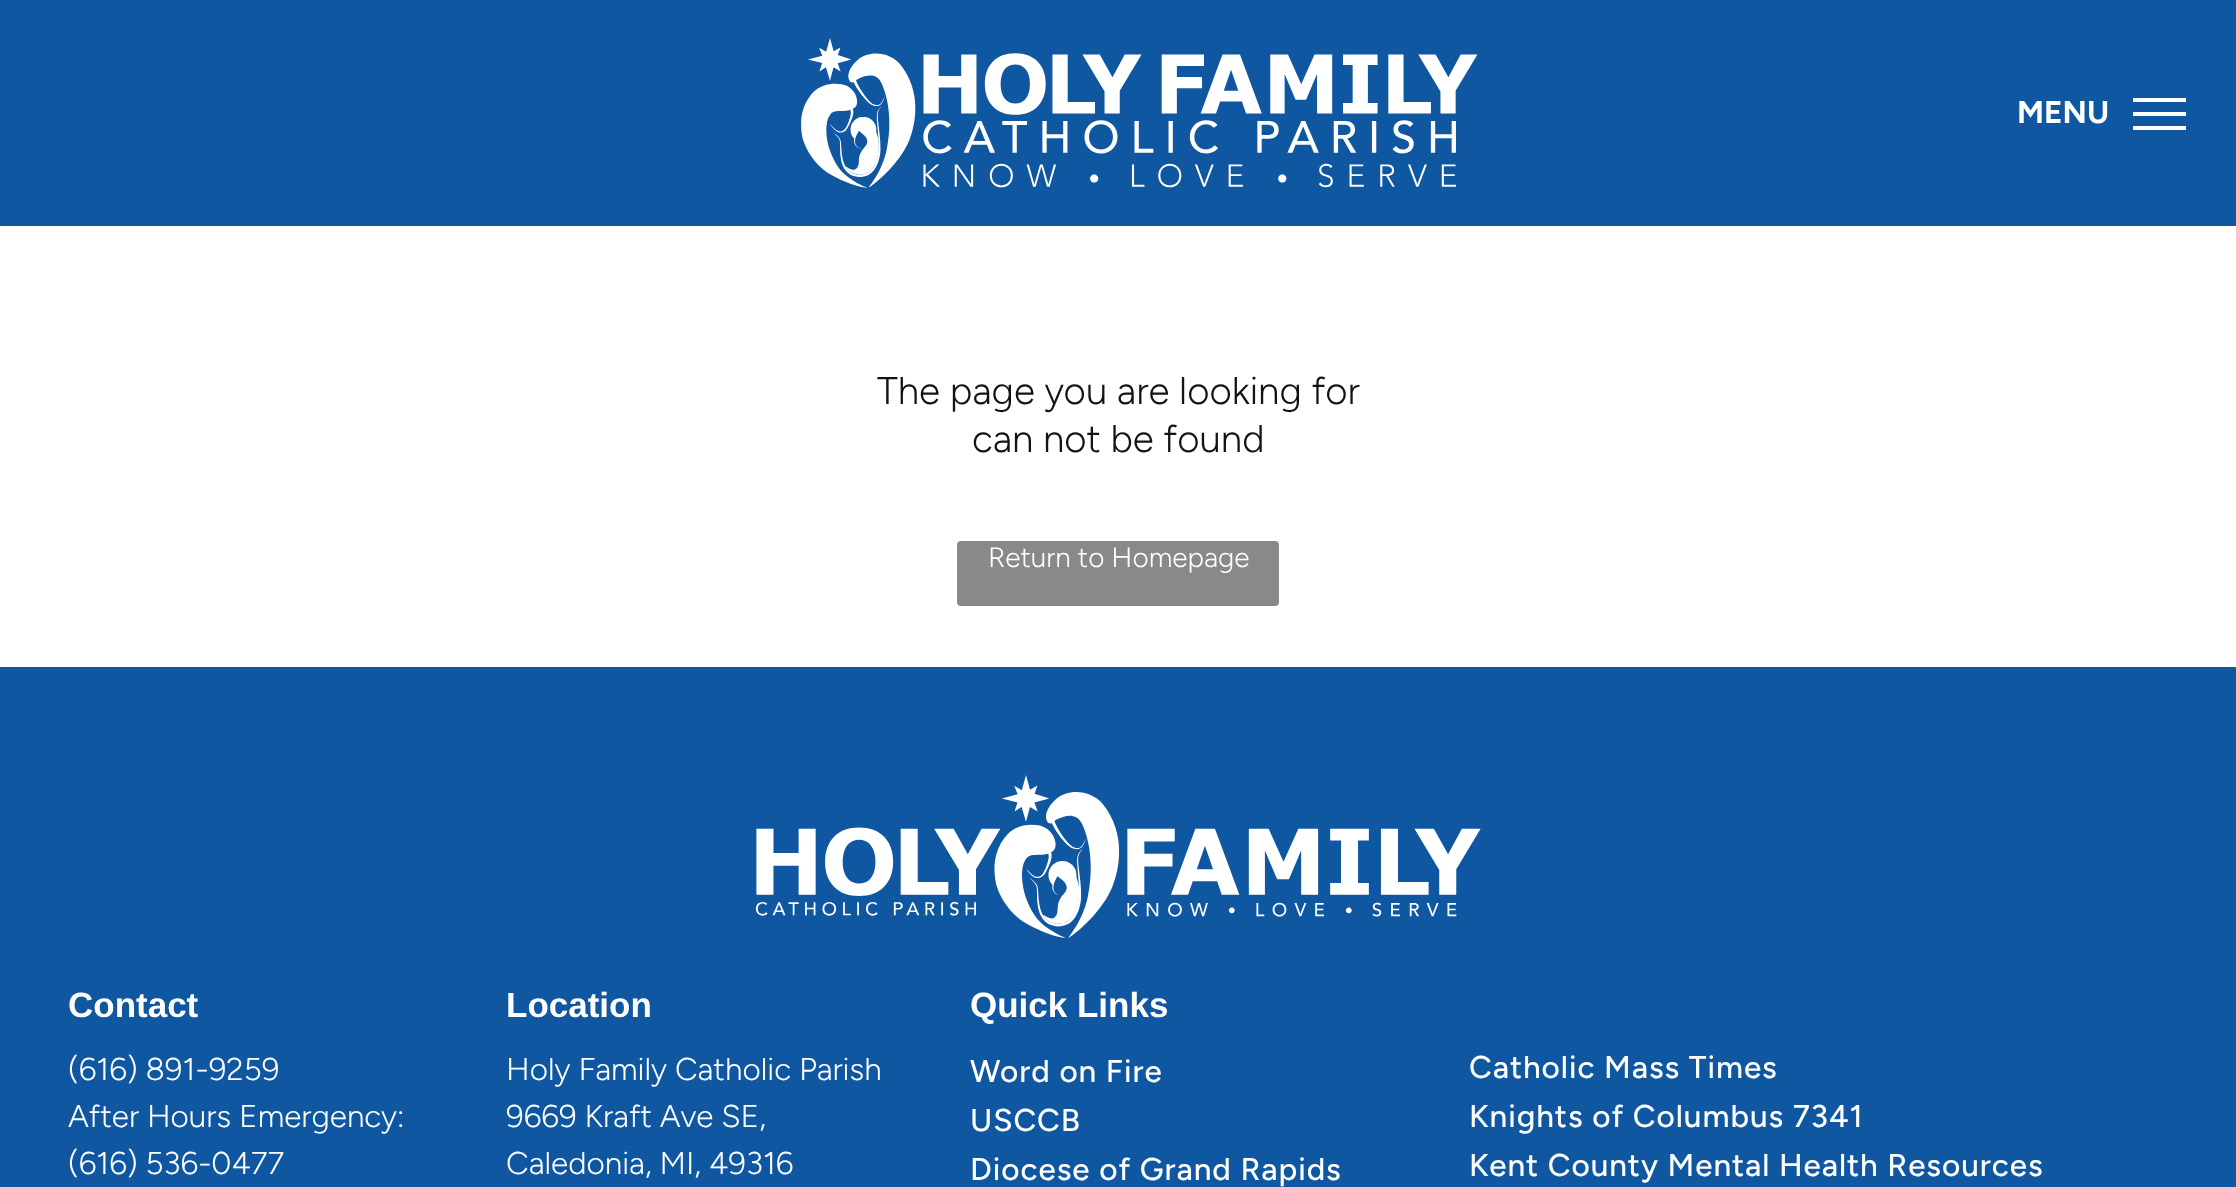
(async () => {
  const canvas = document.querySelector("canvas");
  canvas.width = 2236;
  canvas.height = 1187;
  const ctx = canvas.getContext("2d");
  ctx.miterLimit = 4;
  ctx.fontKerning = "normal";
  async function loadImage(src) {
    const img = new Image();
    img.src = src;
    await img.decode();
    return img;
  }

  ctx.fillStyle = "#ffffff";
  ctx.fillRect(0, 0, 2236, 1187);
  ctx.fillStyle = "#1057a2";
  ctx.fillRect(0, 0, 2236, 226);
  ctx.drawImage(await loadImage("img/1.png"), 801, 38, 677, 150);
  for (const [x, y, w, h, color] of [
    [2133, 98, 53, 4, "#ffffff"],
    [2133, 112, 53, 4, "#ffffff"],
    [2133, 126, 53, 4, "#ffffff"],
  ]) {
    ctx.fillStyle = color;
    ctx.fillRect(x, y, w, h);
  }
  ctx.fillStyle = "#898989";
  ctx.beginPath();
  ctx.roundRect(957, 541, 322, 65, 4);
  ctx.fill();
  ctx.fillStyle = "#1057a2";
  ctx.fillRect(0, 667, 2236, 520);
  ctx.drawImage(await loadImage("img/2.png"), 755, 775, 726, 164);
  ctx.font = "bold 31.5px Figtree";
  ctx.fillStyle = "#ffffff";
  ctx.fillText("MENU", 2017, 123);
  ctx.font = "300 38.5px Figtree";
  ctx.fillStyle = "#161212";
  ctx.fillText("The page you are looking for", 877, 404);
  ctx.fillText("can not be found", 972, 452);
  ctx.font = "300 28px Figtree";
  ctx.fillStyle = "#ffffff";
  ctx.fillText("Return to Homepage", 988, 567);
  ctx.font = "bold 35px Arimo";
  ctx.fillText("Contact", 68, 1017);
  ctx.font = "300 31.5px Figtree";
  for (const [text, x, y] of [
    ["(616) 891-9259", 68, 1080],
    ["After Hours Emergency:", 68, 1127],
    ["(616) 536-0477", 68, 1174],
  ]) {
    ctx.fillText(text, x, y);
  }
  ctx.font = "bold 35px Arimo";
  ctx.fillText("Location", 506, 1017);
  ctx.font = "300 31.5px Figtree";
  for (const [text, x, y] of [
    ["Holy Family Catholic Parish", 506, 1080],
    ["9669 Kraft Ave SE,", 506, 1127],
    ["Caledonia, MI, 49316", 506, 1174],
  ]) {
    ctx.fillText(text, x, y);
  }
  ctx.font = "bold 35px Arimo";
  ctx.fillText("Quick Links", 970, 1017);
  ctx.letterSpacing = "0.95px";
  ctx.font = "500 31.5px Figtree";
  for (const [text, x, y] of [
    ["Word on Fire", 970, 1082],
    ["USCCB", 970, 1131],
    ["Diocese of Grand Rapids", 970, 1180],
    ["Catholic Mass Times", 1469, 1078],
    ["Knights of Columbus 7341", 1469, 1127],
    ["Kent County Mental Health Resources", 1469, 1176],
  ]) {
    ctx.fillText(text, x, y);
  }
})();
